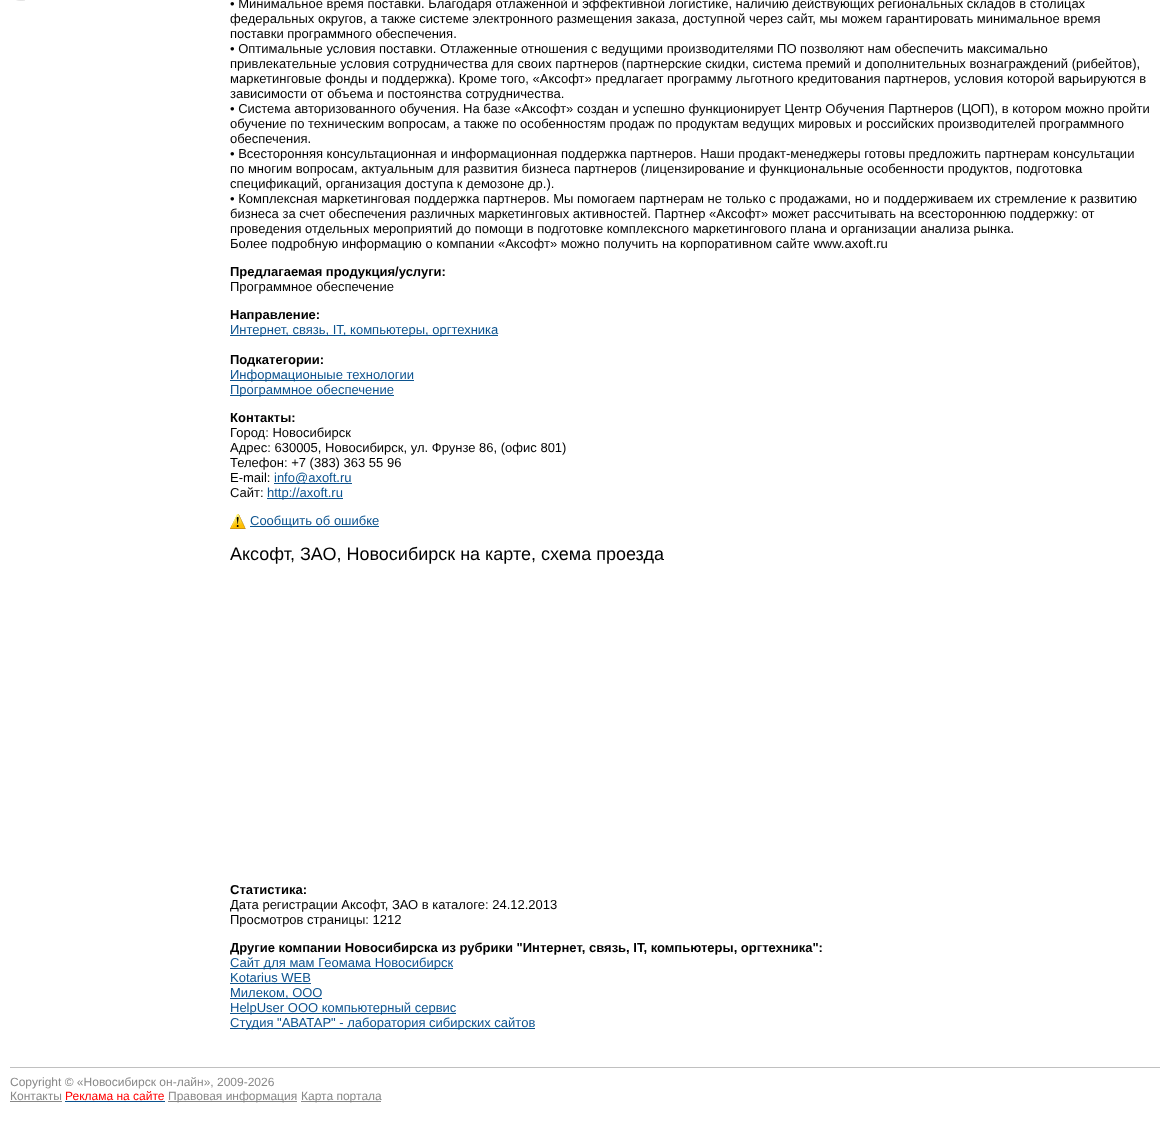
(async () => {
  const canvas = document.querySelector("canvas");
  canvas.width = 1170;
  canvas.height = 1143;
  const ctx = canvas.getContext("2d");
  ctx.miterLimit = 4;
  ctx.fontKerning = "normal";
  async function loadImage(src) {
    const img = new Image();
    img.src = src;
    await img.decode();
    return img;
  }

  ctx.fillStyle = "#ffffff";
  ctx.fillRect(0, 0, 1170, 1143);
  ctx.drawImage(await loadImage("img/1.png"), 16, 0, 9, 1);
  for (const [x, y, w, h, color] of [
    [230, 335, 268, 1, "#0c538f"],
    [230, 380, 184, 1, "#0c538f"],
    [230, 395, 164, 1, "#0c538f"],
    [274, 483, 78, 1, "#0c538f"],
    [267, 498, 76, 1, "#0c538f"],
  ]) {
    ctx.fillStyle = color;
    ctx.fillRect(x, y, w, h);
  }
  ctx.drawImage(await loadImage("img/2.png"), 230, 514, 16, 15);
  for (const [x, y, w, h, color] of [
    [250, 526, 129, 1, "#0c538f"],
    [230, 968, 223, 1, "#0c538f"],
    [230, 983, 81, 1, "#0c538f"],
    [230, 998, 92, 1, "#0c538f"],
    [230, 1013, 226, 1, "#0c538f"],
    [230, 1028, 305, 1, "#0c538f"],
    [10, 1067, 1150, 1, "#c0c0c0"],
    [10, 1101, 52, 1, "#888888"],
    [65, 1101, 100, 1, "#0c538f"],
    [168, 1101, 129, 1, "#888888"],
    [301, 1101, 80, 1, "#888888"],
  ]) {
    ctx.fillStyle = color;
    ctx.fillRect(x, y, w, h);
  }
  ctx.font = "13px Liberation Sans";
  ctx.fillStyle = "#000000";
  for (const [text, x, y] of [
    ["• Минимальное время поставки. Благодаря отлаженной и эффективной логистике, наличию действующих региональных складов в столицах", 230, 8],
    ["федеральных округов, а также системе электронного размещения заказа, доступной через сайт, мы можем гарантировать минимальное время", 230, 23],
    ["поставки программного обеспечения.", 230, 38],
    ["• Оптимальные условия поставки. Отлаженные отношения с ведущими производителями ПО позволяют нам обеспечить максимально", 230, 53],
    ["привлекательные условия сотрудничества для своих партнеров (партнерские скидки, система премий и дополнительных вознаграждений (рибейтов),", 230, 68],
    ["маркетинговые фонды и поддержка). Кроме того, «Аксофт» предлагает программу льготного кредитования партнеров, условия которой варьируются в", 230, 83],
    ["зависимости от объема и постоянства сотрудничества.", 230, 98],
    ["• Система авторизованного обучения. На базе «Аксофт» создан и успешно функционирует Центр Обучения Партнеров (ЦОП), в котором можно пройти", 230, 113],
    ["обучение по техническим вопросам, а также по особенностям продаж по продуктам ведущих мировых и российских производителей программного", 230, 128],
    ["обеспечения.", 230, 143],
    ["• Всесторонняя консультационная и информационная поддержка партнеров. Наши продакт-менеджеры готовы предложить партнерам консультации", 230, 158],
    ["по многим вопросам, актуальным для развития бизнеса партнеров (лицензирование и функциональные особенности продуктов, подготовка", 230, 173],
    ["спецификаций, организация доступа к демозоне др.).", 230, 188],
    ["• Комплексная маркетинговая поддержка партнеров. Мы помогаем партнерам не только с продажами, но и поддерживаем их стремление к развитию", 230, 203],
    ["бизнеса за счет обеспечения различных маркетинговых активностей. Партнер «Аксофт» может рассчитывать на всестороннюю поддержку: от", 230, 218],
    ["проведения отдельных мероприятий до помощи в подготовке комплексного маркетингового плана и организации анализа рынка.", 230, 233],
    ["Более подробную информацию о компании «Аксофт» можно получить на корпоративном сайте www.axoft.ru", 230, 248],
  ]) {
    ctx.fillText(text, x, y);
  }
  ctx.font = "bold 13px Liberation Sans";
  ctx.fillText("Предлагаемая продукция/услуги:", 230, 276);
  ctx.font = "13px Liberation Sans";
  ctx.fillText("Программное обеспечение", 230, 291);
  ctx.font = "bold 13px Liberation Sans";
  ctx.fillText("Направление:", 230, 319);
  ctx.font = "13px Liberation Sans";
  ctx.fillStyle = "#0c538f";
  ctx.fillText("Интернет, связь, IT, компьютеры, оргтехника", 230, 334);
  ctx.font = "bold 13px Liberation Sans";
  ctx.fillStyle = "#000000";
  ctx.fillText("Подкатегории:", 230, 364);
  ctx.font = "13px Liberation Sans";
  ctx.fillStyle = "#0c538f";
  ctx.fillText("Информационыые технологии", 230, 379);
  ctx.fillText("Программное обеспечение", 230, 394);
  ctx.font = "bold 13px Liberation Sans";
  ctx.fillStyle = "#000000";
  ctx.fillText("Контакты:", 230, 422);
  ctx.font = "13px Liberation Sans";
  for (const [text, x, y] of [
    ["Город: Новосибирск", 230, 437],
    ["Адрес: 630005, Новосибирск, ул. Фрунзе 86, (офис 801)", 230, 452],
    ["Телефон: +7 (383) 363 55 96", 230, 467],
    ["E-mail:", 230, 482],
  ]) {
    ctx.fillText(text, x, y);
  }
  ctx.fillStyle = "#0c538f";
  ctx.fillText("info@axoft.ru", 274, 482);
  ctx.fillStyle = "#000000";
  ctx.fillText("Сайт:", 230, 497);
  ctx.fillStyle = "#0c538f";
  ctx.fillText("http://axoft.ru", 267, 497);
  ctx.fillText("Сообщить об ошибке", 250, 525);
  ctx.font = "18px Liberation Sans";
  ctx.fillStyle = "#000000";
  ctx.fillText("Аксофт, ЗАО, Новосибирск на карте, схема проезда", 230, 560);
  ctx.font = "bold 13px Liberation Sans";
  ctx.fillText("Статистика:", 230, 894);
  ctx.font = "13px Liberation Sans";
  ctx.fillText("Дата регистрации Аксофт, ЗАО в каталоге: 24.12.2013", 230, 909);
  ctx.fillText("Просмотров страницы: 1212", 230, 924);
  ctx.font = "bold 13px Liberation Sans";
  ctx.fillText("Другие компании Новосибирскa из рубрики \"Интернет, связь, IT, компьютеры, оргтехника\":", 230, 952);
  ctx.font = "13px Liberation Sans";
  ctx.fillStyle = "#0c538f";
  for (const [text, x, y] of [
    ["Сайт для мам Геомама Новосибирск", 230, 967],
    ["Kotarius WEB", 230, 982],
    ["Милеком, ООО", 230, 997],
    ["HelpUser OOO компьютерный сервис", 230, 1012],
    ["Студия \"АВАТАР\" - лаборатория сибирских сайтов", 230, 1027],
  ]) {
    ctx.fillText(text, x, y);
  }
  ctx.font = "12px Liberation Sans";
  ctx.fillStyle = "#888888";
  ctx.fillText("Copyright © «Новосибирск он-лайн», 2009-2026", 10, 1086);
  ctx.fillText("Контакты", 10, 1100);
  ctx.fillStyle = "#ff0000";
  ctx.fillText("Реклама на сайте", 65, 1100);
  ctx.fillStyle = "#888888";
  ctx.fillText("Правовая информация", 168, 1100);
  ctx.fillText("Карта портала", 301, 1100);
})();
